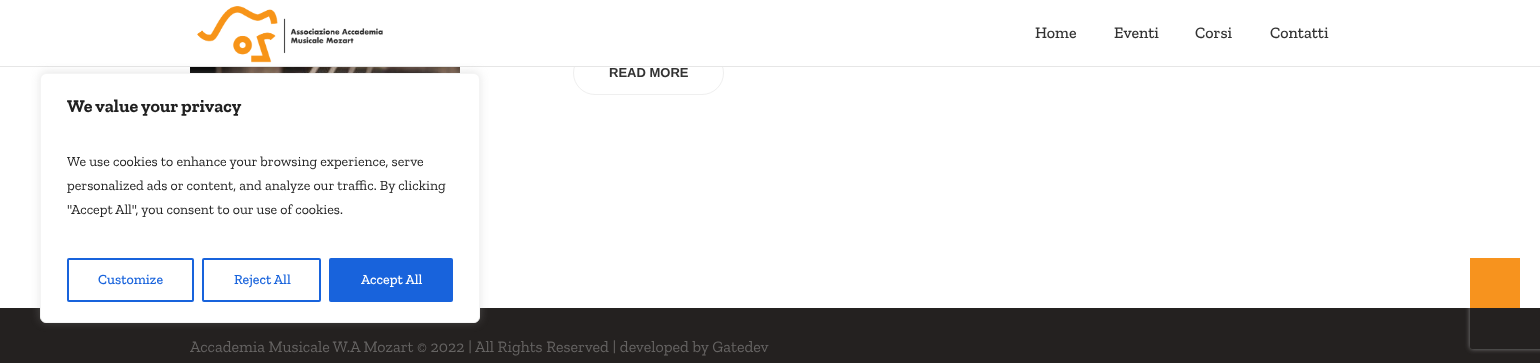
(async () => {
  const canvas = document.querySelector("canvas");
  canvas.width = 1540;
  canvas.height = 363;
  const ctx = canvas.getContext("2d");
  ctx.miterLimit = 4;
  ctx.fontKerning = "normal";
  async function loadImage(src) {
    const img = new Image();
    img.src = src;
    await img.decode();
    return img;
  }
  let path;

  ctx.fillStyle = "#242120";
  ctx.fillRect(0, 0, 1540, 363);
  ctx.save();
  path = new Path2D("M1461 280H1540V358H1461ZM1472 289H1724C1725 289 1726 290 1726 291V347C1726 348 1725 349 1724 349H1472C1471 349 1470 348 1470 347V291C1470 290 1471 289 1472 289Z");
  ctx.clip(path, "evenodd");
  ctx.fillStyle = "#808080";
  ctx.filter = "blur(2.5px)";
  ctx.beginPath();
  ctx.roundRect(1470, 289, 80, 60, 2);
  ctx.fill();
  ctx.filter = "none";
  ctx.restore();
  ctx.fillStyle = "#ffffff";
  ctx.fillRect(0, 67, 1540, 241);
  ctx.beginPath();
  ctx.roundRect(573.5, 51.5, 150, 43, 21.5);
  ctx.strokeStyle = "#efefef";
  ctx.stroke();
  ctx.fillRect(0, 0, 1540, 66);
  ctx.fillStyle = "#e6e6e6";
  ctx.fillRect(0, 66, 1540, 1);
  ctx.drawImage(await loadImage("img/1.png"), 197, 6, 186, 57);
  ctx.drawImage(await loadImage("img/2.png"), 190, 67, 270, 6);
  ctx.fillStyle = "#f7931e";
  ctx.fillRect(1470, 258, 50, 50);
  ctx.fillStyle = "rgba(172, 171, 171, 0.3)";
  ctx.filter = "blur(5px)";
  ctx.beginPath();
  ctx.roundRect(40, 72, 440, 250, 6);
  ctx.fill();
  ctx.filter = "none";
  ctx.fillStyle = "#ffffff";
  ctx.beginPath();
  ctx.roundRect(40.5, 73.5, 439, 249, 5.5);
  ctx.fill();
  ctx.strokeStyle = "#f4f4f4";
  ctx.stroke();
  ctx.beginPath();
  ctx.roundRect(68, 259, 125, 42, 1);
  ctx.strokeStyle = "#1863dc";
  ctx.lineWidth = 2;
  ctx.stroke();
  ctx.beginPath();
  ctx.roundRect(203, 259, 117, 42, 1);
  ctx.stroke();
  ctx.fillStyle = "#1863dc";
  ctx.beginPath();
  ctx.roundRect(330, 259, 122, 42, 1);
  ctx.fill();
  ctx.stroke();
  ctx.font = "500 16px Zilla Slab";
  ctx.fillStyle = "#333333";
  for (const [text, x, y] of [
    ["Home", 1035, 38],
    ["Eventi", 1114, 38],
    ["Corsi", 1195, 38],
    ["Contatti", 1270, 38],
  ]) {
    ctx.fillText(text, x, y);
  }
  ctx.font = "bold 13px Liberation Sans";
  ctx.fillText("READ MORE", 609, 77);
  ctx.font = "16px Zilla Slab";
  ctx.fillStyle = "#666463";
  ctx.fillText("Accademia Musicale W.A Mozart © 2022 | All Rights Reserved | developed by Gatedev", 190, 352);
  ctx.font = "bold 18px Zilla Slab";
  ctx.fillStyle = "#212121";
  ctx.fillText("We value your privacy", 67, 112);
  ctx.font = "14px Zilla Slab";
  for (const [text, x, y] of [
    ["We use cookies to enhance your browsing experience, serve", 67, 166],
    ["personalized ads or content, and analyze our traffic. By clicking", 67, 190],
    ["\"Accept All\", you consent to our use of cookies.", 67, 214],
  ]) {
    ctx.fillText(text, x, y);
  }
  ctx.font = "500 14px Zilla Slab";
  ctx.fillStyle = "#1863dc";
  ctx.fillText("Customize", 98, 284);
  ctx.fillText("Reject All", 234, 284);
  ctx.fillStyle = "#ffffff";
  ctx.fillText("Accept All", 361, 284);
})();
